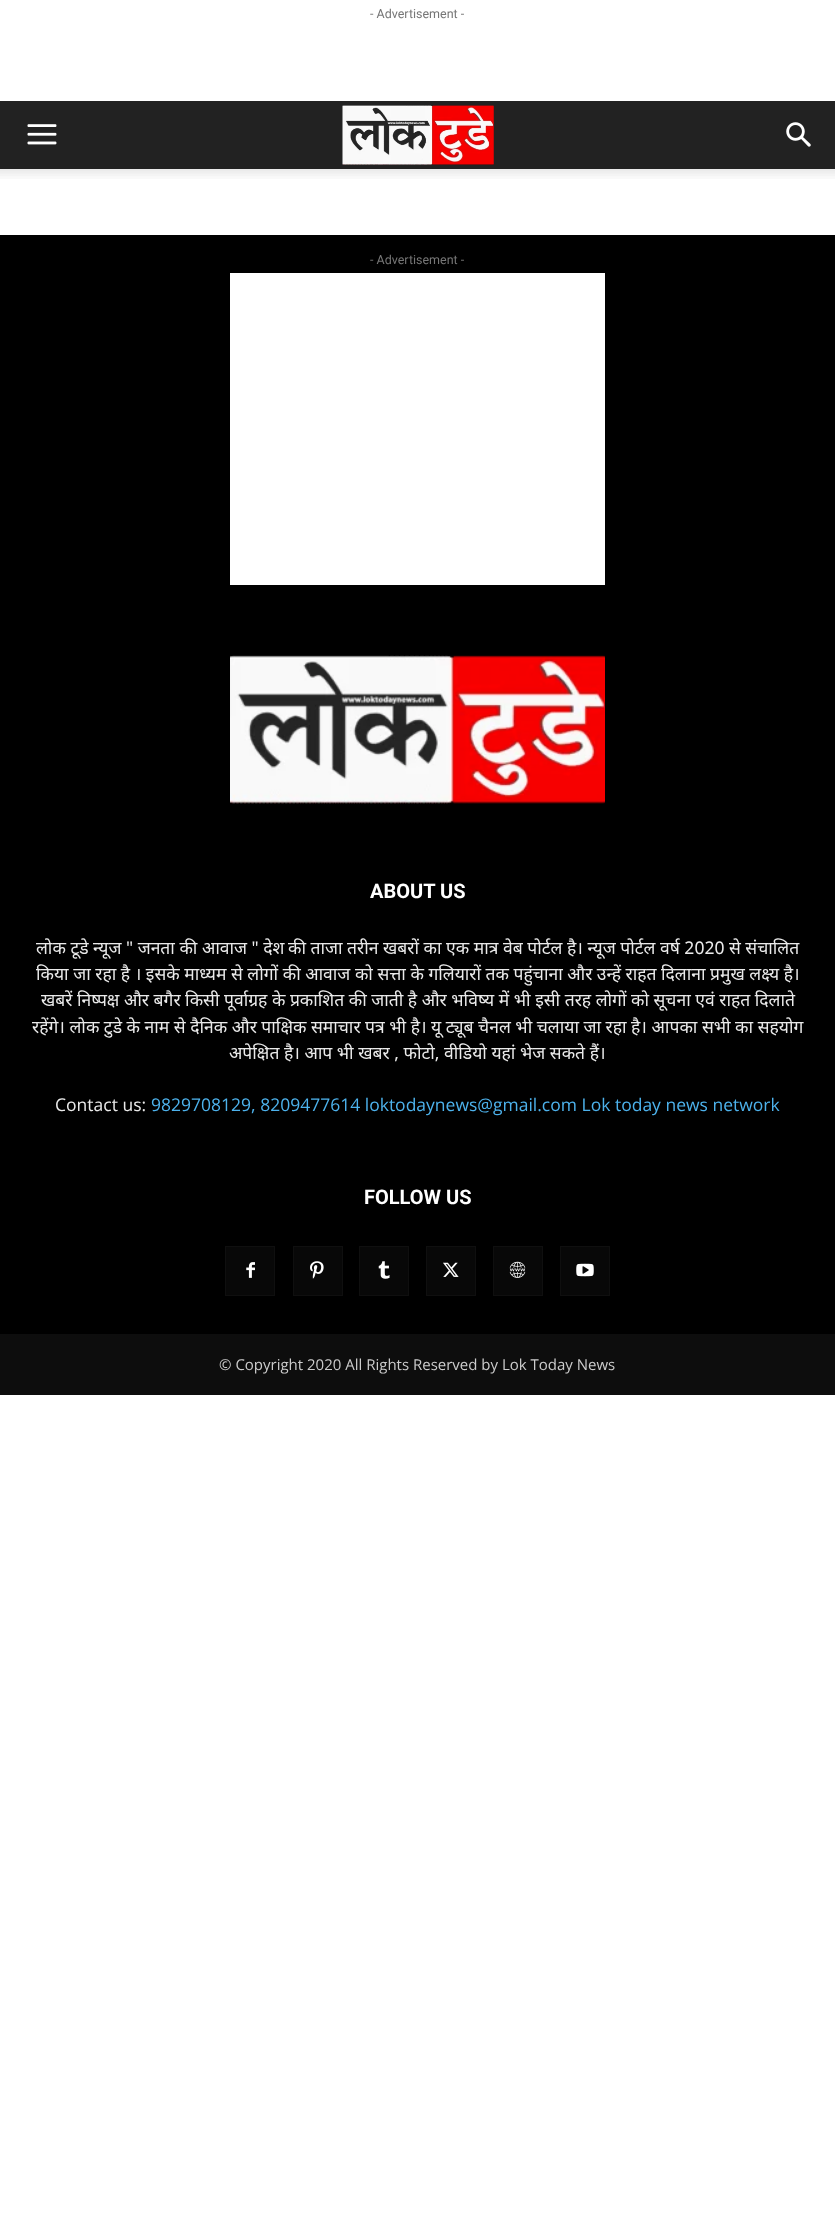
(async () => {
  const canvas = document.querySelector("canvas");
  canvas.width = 835;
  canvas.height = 2215;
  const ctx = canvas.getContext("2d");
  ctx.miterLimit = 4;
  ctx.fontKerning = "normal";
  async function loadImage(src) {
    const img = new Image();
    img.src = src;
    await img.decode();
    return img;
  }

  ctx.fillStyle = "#ffffff";
  ctx.fillRect(0, 0, 835, 2215);
  ctx.fillStyle = "#222222";
  ctx.fillRect(0, 101, 835, 68);
  ctx.drawImage(await loadImage("img/1.png"), 27, 124, 30, 21);
  ctx.drawImage(await loadImage("img/2.png"), 342, 105, 152, 60);
  ctx.drawImage(await loadImage("img/3.png"), 786, 122, 25, 25);
  ctx.drawImage(await loadImage("img/4.png"), 0, 169, 835, 10);
  ctx.fillStyle = "#000000";
  ctx.fillRect(0, 235, 835, 1099);
  ctx.fillStyle = "#ffffff";
  ctx.fillRect(230, 273, 375, 312);
  ctx.drawImage(await loadImage("img/5.png"), 230, 655, 375, 149);
  ctx.fillStyle = "#080808";
  ctx.fillRect(226, 1247, 48, 48);
  ctx.drawImage(await loadImage("img/6.png"), 246, 1262, 9, 16);
  ctx.strokeStyle = "#0f0f0f";
  ctx.strokeRect(225.5, 1246.5, 49, 49);
  ctx.fillRect(294, 1247, 48, 48);
  ctx.drawImage(await loadImage("img/7.png"), 310, 1261, 14, 18);
  ctx.strokeRect(293.5, 1246.5, 49, 49);
  ctx.fillRect(360, 1247, 48, 48);
  ctx.drawImage(await loadImage("img/8.png"), 378, 1261, 12, 18);
  ctx.strokeRect(359.5, 1246.5, 49, 49);
  ctx.fillRect(427, 1247, 48, 48);
  ctx.drawImage(await loadImage("img/9.png"), 443, 1262, 16, 15);
  ctx.strokeRect(426.5, 1246.5, 49, 49);
  ctx.fillRect(494, 1247, 48, 48);
  ctx.drawImage(await loadImage("img/10.png"), 509, 1261, 17, 17);
  ctx.strokeRect(493.5, 1246.5, 49, 49);
  ctx.fillRect(561, 1247, 48, 48);
  ctx.drawImage(await loadImage("img/11.png"), 576, 1263, 18, 14);
  ctx.strokeRect(560.5, 1246.5, 49, 49);
  ctx.fillStyle = "#0d0d0d";
  ctx.fillRect(0, 1334, 835, 61);
  ctx.font = "12.5px Roboto";
  ctx.fillStyle = "#767676";
  ctx.fillText("- Advertisement -", 370, 18);
  ctx.fillText("- Advertisement -", 370, 264);
  ctx.font = "bold 20px Roboto";
  ctx.fillStyle = "#ffffff";
  ctx.fillText("ABOUT US", 370, 898);
  ctx.font = "17.5px Noto Sans";
  ctx.fillStyle = "#eaeaea";
  for (const [text, x, y] of [
    ["लोक टूडे न्यूज \" जनता की आवाज \" देश", 36, 954],
    ["की ताजा तरीन खबरों का एक मात्र वेब पोर्टल है। न्यूज पोर्टल वर्ष 2020 से संचालित", 288, 954],
    ["किया जा रहा है । इसके माध्यम से लोगों की आवाज को सत्ता के गलियारों तक पहुंचाना और उन्हें राहत दिलाना प्रमुख लक्ष्य है।", 36, 980],
    ["खबरें निष्पक्ष और बगैर किसी पूर्वाग्रह के प्रकाशित की जाती है और भविष्य में भी इसी तरह लोगों को सूचना एवं राहत दिलाते", 41, 1006],
    ["रहेंगे। लोक टुडे के नाम से दैनिक और पाक्षिक समाचार पत्र भी है। यू ट्यूब चैनल भी चलाया जा रहा है। आपका सभी का सहयोग", 32, 1033],
    ["अपेक्षित है। आप भी खबर , फोटो, वीडियो यहां", 229, 1059],
    ["भेज सकते हैं।", 520, 1059],
  ]) {
    ctx.fillText(text, x, y);
  }
  ctx.font = "17.5px Open Sans";
  ctx.fillText("Contact us:", 55, 1111);
  ctx.fillStyle = "#4db2ec";
  ctx.fillText("9829708129, 8209477614 loktodaynews@gmail.com Lok today news network", 151, 1111);
  ctx.font = "bold 20px Roboto";
  ctx.fillStyle = "#ffffff";
  ctx.fillText("FOLLOW US", 364, 1204);
  ctx.font = "15px Open Sans";
  ctx.fillStyle = "#cccccc";
  ctx.fillText("© Copyright 2020 All Rights Reserved by Lok Today News", 219, 1370);
})();
